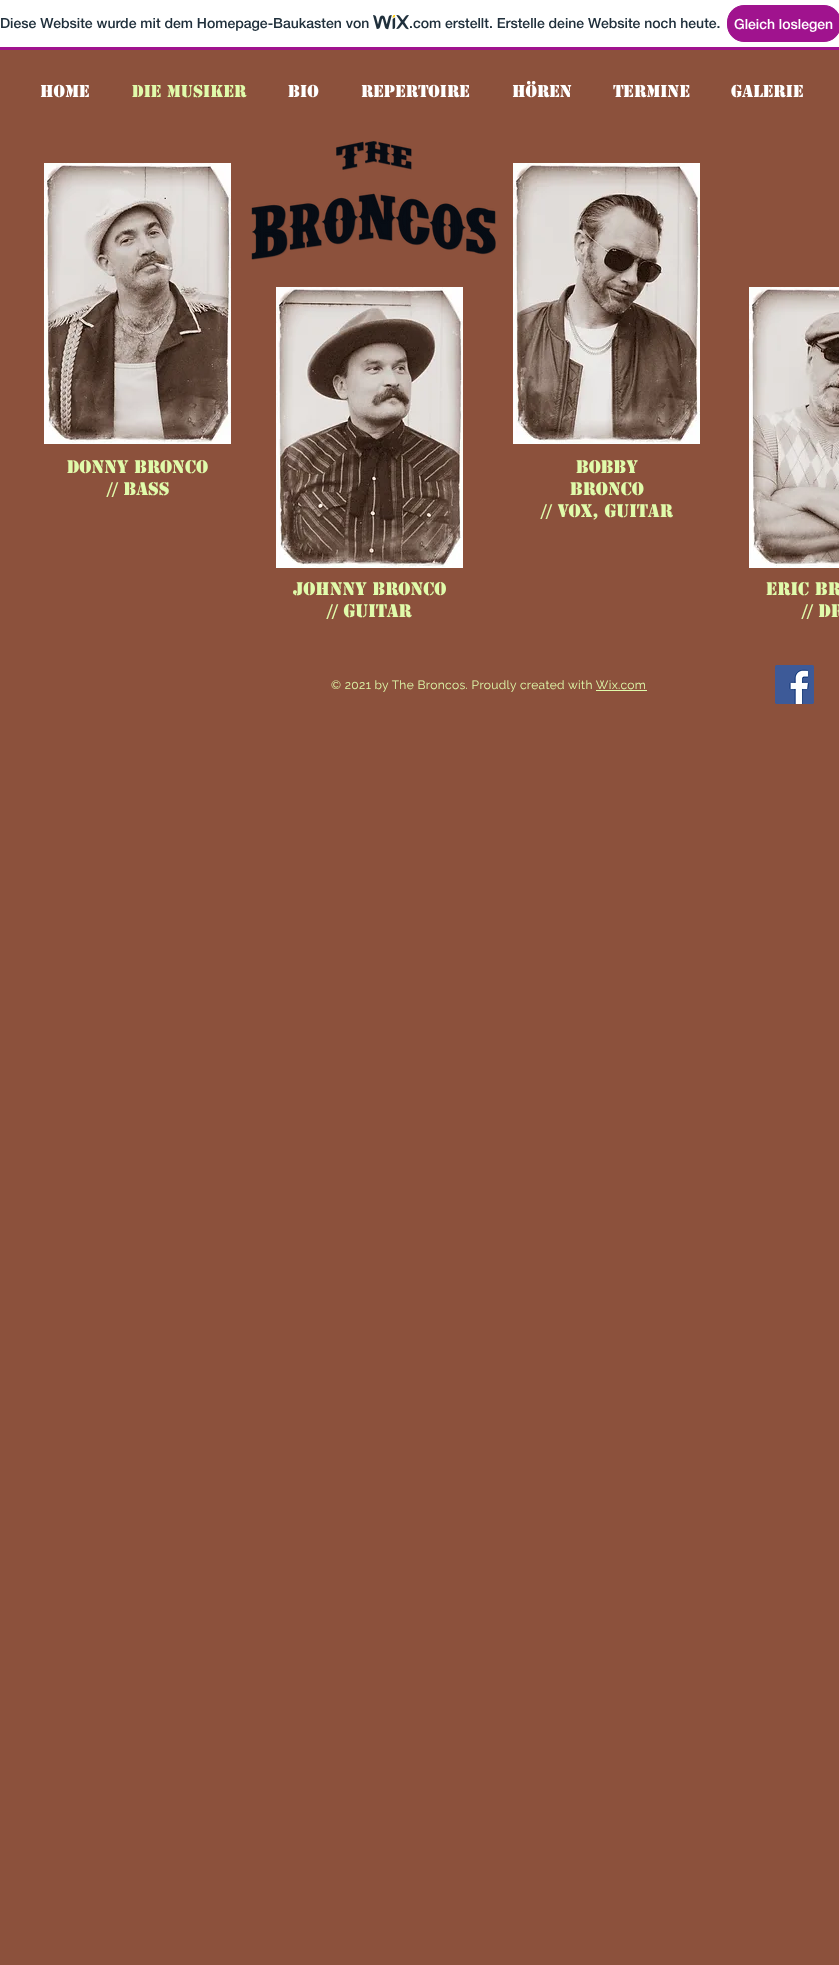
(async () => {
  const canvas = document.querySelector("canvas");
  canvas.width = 839;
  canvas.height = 1965;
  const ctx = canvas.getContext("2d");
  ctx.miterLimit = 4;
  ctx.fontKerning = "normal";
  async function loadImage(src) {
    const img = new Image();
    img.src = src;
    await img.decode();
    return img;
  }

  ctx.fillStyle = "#ffffff";
  ctx.fillRect(0, 0, 839, 1965);
  ctx.fillStyle = "#a0138e";
  ctx.fillRect(0, 47, 839, 3);
  ctx.drawImage(await loadImage("img/1.png"), 373, 15, 36, 15);
  ctx.beginPath();
  ctx.roundRect(727.5, 5.5, 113, 36, 16.5);
  ctx.fill();
  ctx.strokeStyle = "#a0138e";
  ctx.stroke();
  ctx.fillStyle = "#8c513c";
  ctx.fillRect(0, 50, 839, 1915);
  ctx.drawImage(await loadImage("img/2.png"), 44, 163, 187, 281);
  ctx.drawImage(await loadImage("img/3.png"), 251, 141, 245, 119);
  ctx.drawImage(await loadImage("img/4.png"), 513, 163, 187, 281);
  ctx.drawImage(await loadImage("img/5.png"), 276, 287, 187, 281);
  ctx.drawImage(await loadImage("img/6.png"), 749, 287, 90, 281);
  ctx.fillStyle = "#e0fbab";
  ctx.fillRect(596, 690, 51, 1);
  ctx.drawImage(await loadImage("img/7.png"), 775, 665, 39, 39);
  ctx.font = "500 14px 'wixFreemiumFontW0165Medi'";
  ctx.fillStyle = "#20303c";
  ctx.fillText("Diese Website wurde mit dem Homepage-Baukasten von", 0, 28);
  ctx.fillText(".com erstellt. Erstelle deine Website noch heute.", 409, 28);
  ctx.fillStyle = "#ffffff";
  ctx.fillText("Gleich loslegen", 734, 29);
  ctx.font = "bold 16px 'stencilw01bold'";
  ctx.fillText("HOME", 40, 97);
  ctx.fillStyle = "#e0fbab";
  ctx.fillText("DIE MUSIKER", 132, 97);
  ctx.fillStyle = "#ffffff";
  for (const [text, x, y] of [
    ["BIO", 288, 97],
    ["REPERTOIRE", 361, 97],
    ["HÖREN", 512, 97],
    ["TERMINE", 613, 97],
    ["GALERIE", 731, 97],
  ]) {
    ctx.fillText(text, x, y);
  }
  ctx.font = "bold 17px 'stencilw01bold'";
  ctx.fillStyle = "#e0fbab";
  for (const [text, x, y] of [
    ["DONNY BRONCO", 67, 473],
    ["// BASS", 107, 495],
    ["BOBBY", 576, 473],
    ["BRONCO", 570, 495],
    ["// VOX, GUITAR", 541, 517],
    ["JOHNNY BRONCO", 293, 595],
    ["// GUITAR", 327, 617],
    ["ERIC BR", 766, 595],
    ["// DR", 802, 617],
  ]) {
    ctx.fillText(text, x, y);
  }
  ctx.letterSpacing = "0.35px";
  ctx.font = "12px Raleway";
  ctx.fillText("© 2021 by The Broncos. Proudly created with Wix.com", 331, 689);
})();
